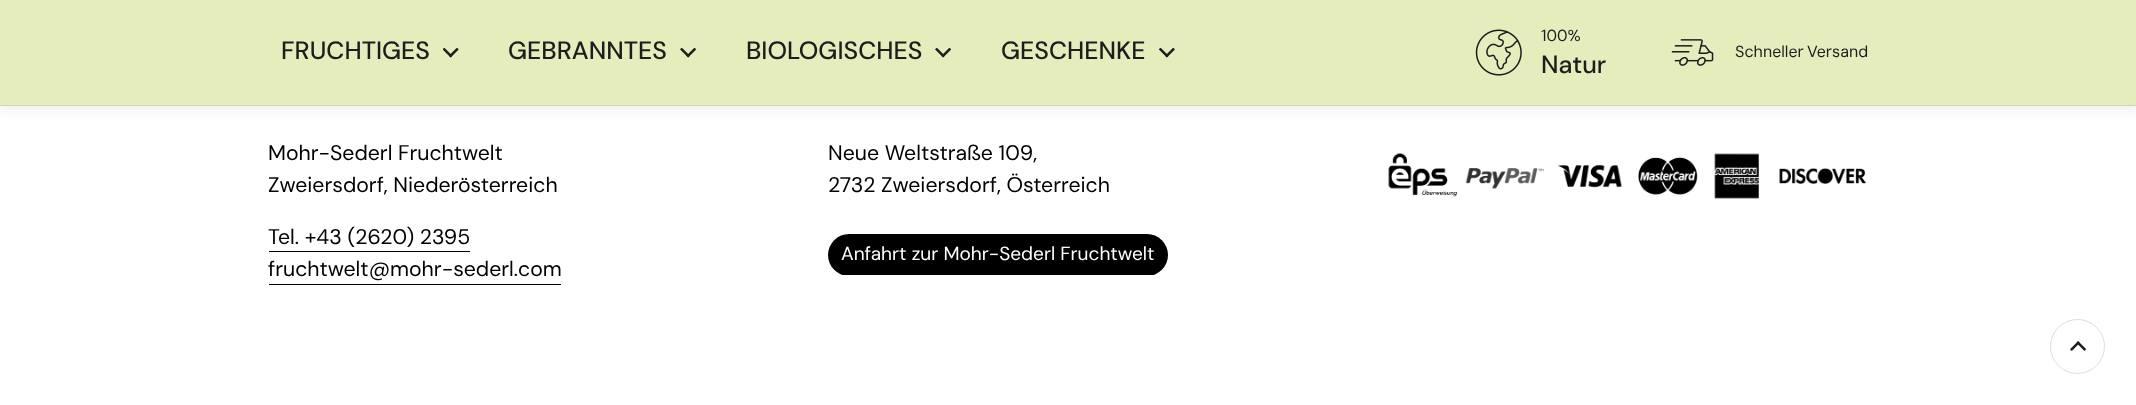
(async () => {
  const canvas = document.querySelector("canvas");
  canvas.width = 2136;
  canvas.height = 405;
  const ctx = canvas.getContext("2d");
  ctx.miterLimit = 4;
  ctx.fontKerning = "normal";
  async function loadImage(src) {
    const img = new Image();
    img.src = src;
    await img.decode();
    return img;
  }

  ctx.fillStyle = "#ffffff";
  ctx.fillRect(0, 0, 2136, 405);
  ctx.fillStyle = "rgba(0, 0, 0, 0.06)";
  ctx.filter = "blur(6px)";
  ctx.beginPath();
  ctx.rect(-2, 0, 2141, 111);
  ctx.fill();
  ctx.filter = "none";
  ctx.fillStyle = "#e5edbc";
  ctx.fillRect(0, 0, 2136, 105);
  ctx.fillStyle = "#d1d8ac";
  ctx.fillRect(0, 105, 2136, 1);
  ctx.drawImage(await loadImage("img/1.png"), 443, 48, 16, 10);
  ctx.drawImage(await loadImage("img/2.png"), 680, 48, 16, 10);
  ctx.drawImage(await loadImage("img/2.png"), 935, 48, 16, 10);
  ctx.drawImage(await loadImage("img/3.png"), 1159, 48, 16, 10);
  ctx.drawImage(await loadImage("img/4.png"), 1475, 29, 47, 47);
  ctx.drawImage(await loadImage("img/5.png"), 1671, 39, 43, 27);
  ctx.fillStyle = "#000000";
  ctx.fillRect(269, 251, 201, 1);
  ctx.fillRect(269, 284, 292, 1);
  ctx.beginPath();
  ctx.roundRect(828, 234, 340, 42, 21);
  ctx.fill();
  ctx.fillStyle = "#ffffff";
  ctx.fillRect(839, 275, 319, 1);
  ctx.drawImage(await loadImage("img/6.png"), 1388, 152, 478, 47);
  ctx.beginPath();
  ctx.arc(2077.5, 346.5, 27, 0, Math.PI * 2);
  ctx.strokeStyle = "#dddddd";
  ctx.stroke();
  ctx.drawImage(await loadImage("img/7.png"), 2070, 341, 16, 10);
  ctx.font = "500 25px DM Sans";
  ctx.fillStyle = "#1d1d1d";
  for (const [text, x, y] of [
    ["FRUCHTIGES", 281, 59],
    ["GEBRANNTES", 508, 59],
    ["BIOLOGISCHES", 746, 59],
    ["GESCHENKE", 1001, 59],
  ]) {
    ctx.fillText(text, x, y);
  }
  ctx.font = "16px 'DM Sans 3'";
  ctx.fillText("100%", 1541, 41);
  ctx.font = "500 25px DM Sans";
  ctx.fillText("Natur", 1541, 73);
  ctx.wordSpacing = "-1px";
  ctx.font = "16px 'DM Sans 3'";
  ctx.fillText("Schneller Versand", 1735, 57);
  ctx.wordSpacing = "0px";
  ctx.font = "21.25px DM Sans";
  ctx.fillStyle = "#000000";
  for (const [text, x, y] of [
    ["Mohr-Sederl Fruchtwelt", 268, 160],
    ["Zweiersdorf, Niederösterreich", 268, 192],
    ["Tel. +43 (2620) 2395", 268, 244],
    ["fruchtwelt@mohr-sederl.com", 268, 276],
    ["Neue Weltstraße 109,", 828, 160],
    ["2732 Zweiersdorf, Österreich", 828, 192],
  ]) {
    ctx.fillText(text, x, y);
  }
  ctx.font = "19.1px 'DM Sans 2'";
  ctx.fillStyle = "#ffffff";
  ctx.fillText("Anfahrt zur Mohr-Sederl Fruchtwelt", 841, 260);
})();
